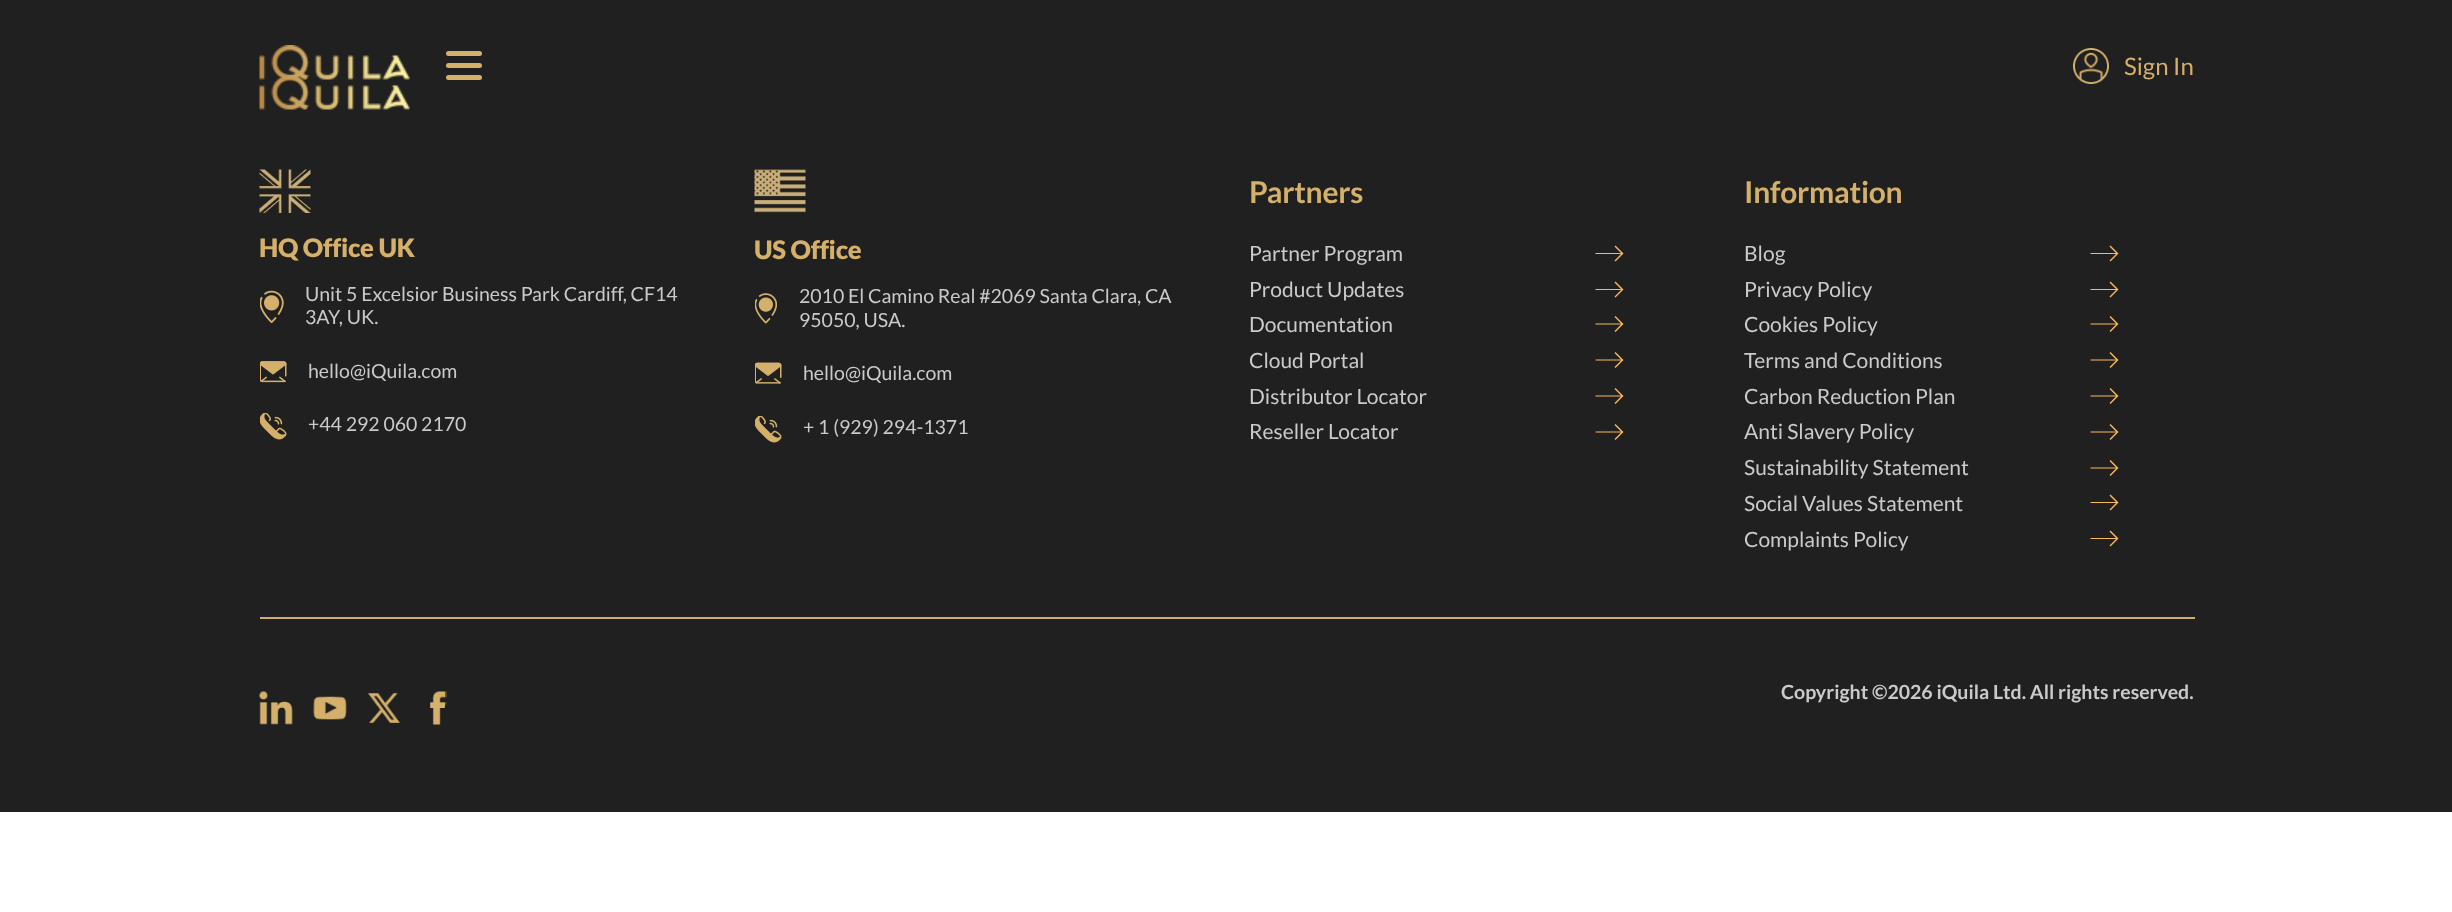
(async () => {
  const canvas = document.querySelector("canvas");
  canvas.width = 2452;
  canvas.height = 912;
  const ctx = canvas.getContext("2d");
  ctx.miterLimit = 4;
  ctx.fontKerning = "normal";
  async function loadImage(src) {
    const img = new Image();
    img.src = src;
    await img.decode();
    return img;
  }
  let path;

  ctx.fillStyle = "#ffffff";
  ctx.fillRect(0, 0, 2452, 912);
  ctx.fillStyle = "#202020";
  ctx.fillRect(0, 0, 2452, 812);
  ctx.drawImage(await loadImage("img/3.png"), 259, 75, 151, 35);
  ctx.drawImage(await loadImage("img/1.png"), 259, 45, 151, 35);
  ctx.fillStyle = "#d4b06b";
  ctx.beginPath();
  ctx.roundRect(446, 51, 36, 5, 2.5);
  ctx.fill();
  ctx.beginPath();
  ctx.roundRect(446, 63, 36, 5, 2.5);
  ctx.fill();
  ctx.beginPath();
  ctx.roundRect(446, 75, 36, 5, 2.5);
  ctx.fill();
  ctx.drawImage(await loadImage("img/2.png"), 2073, 48, 36, 36);
  ctx.drawImage(await loadImage("img/4.png"), 259, 169, 52, 44);
  ctx.drawImage(await loadImage("img/5.png"), 260, 290, 24, 33);
  ctx.drawImage(await loadImage("img/6.png"), 260, 361, 27, 22);
  ctx.drawImage(await loadImage("img/7.png"), 260, 413, 27, 27);
  ctx.drawImage(await loadImage("img/8.png"), 754, 169, 52, 44);
  ctx.drawImage(await loadImage("img/9.png"), 755, 293, 22, 31);
  ctx.drawImage(await loadImage("img/10.png"), 755, 362, 27, 22);
  ctx.drawImage(await loadImage("img/7.png"), 755, 416, 27, 27);
  ctx.fillStyle = "#fab758";
  path = new Path2D("M1615.5 245.5L1614.5 246.5L1621 253H1595.5V254H1621L1614.5 260.5L1615.5 261.5L1623.5 253.5ZM1615.5 281.5L1614.5 282.5L1621 289H1595.5V290H1621L1614.5 296.5L1615.5 297.5L1623.5 289.5Z");
  ctx.fill(path);
  path = new Path2D("M1615.5 316L1614.5 317L1621 323.5H1595.5V324.5H1621L1614.5 331L1615.5 332L1623.5 324ZM1615.5 352L1614.5 353L1621 359.5H1595.5V360.5H1621L1614.5 367L1615.5 368L1623.5 360Z");
  ctx.fill(path);
  path = new Path2D("M1615.5 388L1614.5 389L1621 395.5H1595.5V396.5H1621L1614.5 403L1615.5 404L1623.5 396ZM1615.5 424L1614.5 425L1621 431.5H1595.5V432.5H1621L1614.5 439L1615.5 440L1623.5 432Z");
  ctx.fill(path);
  path = new Path2D("M2110.5 245.5L2109.5 246.5L2116 253H2090.5V254H2116L2109.5 260.5L2110.5 261.5L2118.5 253.5ZM2110.5 281.5L2109.5 282.5L2116 289H2090.5V290H2116L2109.5 296.5L2110.5 297.5L2118.5 289.5Z");
  ctx.fill(path);
  path = new Path2D("M2110.5 316L2109.5 317L2116 323.5H2090.5V324.5H2116L2109.5 331L2110.5 332L2118.5 324ZM2110.5 352L2109.5 353L2116 359.5H2090.5V360.5H2116L2109.5 367L2110.5 368L2118.5 360Z");
  ctx.fill(path);
  path = new Path2D("M2110.5 388L2109.5 389L2116 395.5H2090.5V396.5H2116L2109.5 403L2110.5 404L2118.5 396ZM2110.5 424L2109.5 425L2116 431.5H2090.5V432.5H2116L2109.5 439L2110.5 440L2118.5 432Z");
  ctx.fill(path);
  path = new Path2D("M2110.5 460L2109.5 461L2116 467.5H2090.5V468.5H2116L2109.5 475L2110.5 476L2118.5 468ZM2110.5 494.5L2109.5 495.5L2116 502H2090.5V503H2116L2109.5 509.5L2110.5 510.5L2118.5 502.5Z");
  ctx.fill(path);
  path = new Path2D("M2110.5 530.5L2109.5 531.5L2116 538H2090.5V539H2116L2109.5 545.5L2110.5 546.5L2118.5 538.5Z");
  ctx.fill(path);
  ctx.fillStyle = "#d2ae6a";
  ctx.fillRect(260, 617, 1935, 2);
  ctx.drawImage(await loadImage("img/11.png"), 259, 691, 34, 34);
  ctx.drawImage(await loadImage("img/12.png"), 313, 696, 34, 24);
  ctx.drawImage(await loadImage("img/13.png"), 367, 693, 34, 30);
  ctx.drawImage(await loadImage("img/14.png"), 430, 691, 17, 34);
  ctx.font = "24px Lato";
  ctx.fillStyle = "#d4b06b";
  ctx.fillText("Sign In", 2124, 75);
  ctx.letterSpacing = "-0.25px";
  ctx.font = "900 25.5px Lato";
  ctx.fillText("HQ Office UK", 259, 257);
  ctx.letterSpacing = "0px";
  ctx.font = "19.5px Lato";
  ctx.fillStyle = "#cacaca";
  for (const [text, x, y] of [
    ["Unit 5 Excelsior Business Park Cardiff, CF14", 305, 301],
    ["3AY, UK.", 305, 324],
    ["hello@iQuila.com", 308, 378],
    ["+44 292 060 2170", 308, 431],
  ]) {
    ctx.fillText(text, x, y);
  }
  ctx.letterSpacing = "-0.25px";
  ctx.font = "900 25.5px Lato";
  ctx.fillStyle = "#d4b06b";
  ctx.fillText("US Office", 754, 259);
  ctx.letterSpacing = "0px";
  ctx.font = "19.5px Lato";
  ctx.fillStyle = "#cacaca";
  for (const [text, x, y] of [
    ["2010 El Camino Real #2069 Santa Clara, CA", 799, 303],
    ["95050, USA.", 799, 327],
    ["hello@iQuila.com", 803, 380],
    ["+ 1 (929) 294-1371", 803, 434],
  ]) {
    ctx.fillText(text, x, y);
  }
  ctx.letterSpacing = "-0.25px";
  ctx.font = "bold 30px Lato";
  ctx.fillStyle = "#d4b06b";
  ctx.fillText("Partners", 1249, 203);
  ctx.letterSpacing = "0px";
  ctx.font = "21px Lato";
  ctx.fillStyle = "#cacaca";
  for (const [text, x, y] of [
    ["Partner Program", 1249, 261],
    ["Product Updates", 1249, 297],
    ["Documentation", 1249, 332],
    ["Cloud Portal", 1249, 368],
    ["Distributor Locator", 1249, 404],
    ["Reseller Locator", 1249, 439],
  ]) {
    ctx.fillText(text, x, y);
  }
  ctx.letterSpacing = "-0.25px";
  ctx.font = "bold 30px Lato";
  ctx.fillStyle = "#d4b06b";
  ctx.fillText("Information", 1744, 203);
  ctx.letterSpacing = "0px";
  ctx.font = "21px Lato";
  ctx.fillStyle = "#cacaca";
  for (const [text, x, y] of [
    ["Blog", 1744, 261],
    ["Privacy Policy", 1744, 297],
    ["Cookies Policy", 1744, 332],
    ["Terms and Conditions", 1744, 368],
    ["Carbon Reduction Plan", 1744, 404],
    ["Anti Slavery Policy", 1744, 439],
    ["Sustainability Statement", 1744, 475],
    ["Social Values Statement", 1744, 511],
    ["Complaints Policy", 1744, 547],
  ]) {
    ctx.fillText(text, x, y);
  }
  ctx.font = "bold 19.5px Lato";
  ctx.fillText("Copyright ©2026 iQuila Ltd. All rights reserved.", 1781, 699);
})();
